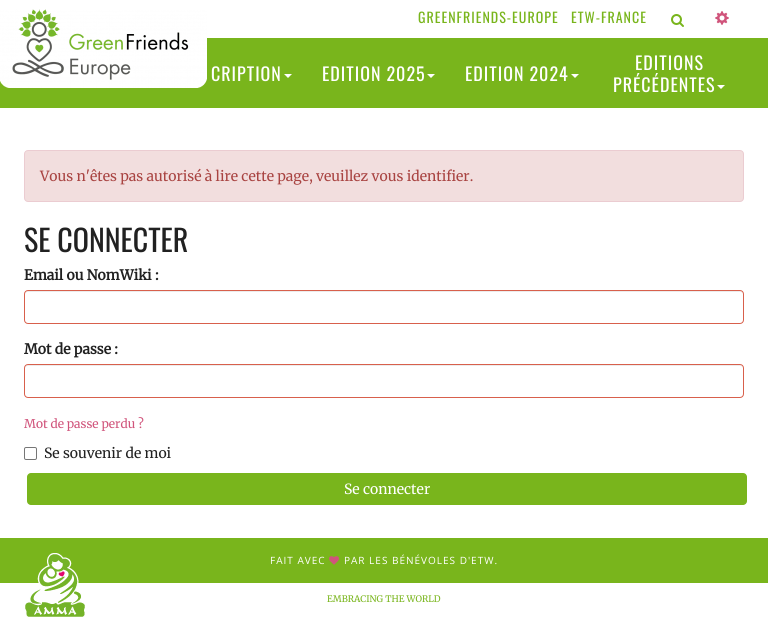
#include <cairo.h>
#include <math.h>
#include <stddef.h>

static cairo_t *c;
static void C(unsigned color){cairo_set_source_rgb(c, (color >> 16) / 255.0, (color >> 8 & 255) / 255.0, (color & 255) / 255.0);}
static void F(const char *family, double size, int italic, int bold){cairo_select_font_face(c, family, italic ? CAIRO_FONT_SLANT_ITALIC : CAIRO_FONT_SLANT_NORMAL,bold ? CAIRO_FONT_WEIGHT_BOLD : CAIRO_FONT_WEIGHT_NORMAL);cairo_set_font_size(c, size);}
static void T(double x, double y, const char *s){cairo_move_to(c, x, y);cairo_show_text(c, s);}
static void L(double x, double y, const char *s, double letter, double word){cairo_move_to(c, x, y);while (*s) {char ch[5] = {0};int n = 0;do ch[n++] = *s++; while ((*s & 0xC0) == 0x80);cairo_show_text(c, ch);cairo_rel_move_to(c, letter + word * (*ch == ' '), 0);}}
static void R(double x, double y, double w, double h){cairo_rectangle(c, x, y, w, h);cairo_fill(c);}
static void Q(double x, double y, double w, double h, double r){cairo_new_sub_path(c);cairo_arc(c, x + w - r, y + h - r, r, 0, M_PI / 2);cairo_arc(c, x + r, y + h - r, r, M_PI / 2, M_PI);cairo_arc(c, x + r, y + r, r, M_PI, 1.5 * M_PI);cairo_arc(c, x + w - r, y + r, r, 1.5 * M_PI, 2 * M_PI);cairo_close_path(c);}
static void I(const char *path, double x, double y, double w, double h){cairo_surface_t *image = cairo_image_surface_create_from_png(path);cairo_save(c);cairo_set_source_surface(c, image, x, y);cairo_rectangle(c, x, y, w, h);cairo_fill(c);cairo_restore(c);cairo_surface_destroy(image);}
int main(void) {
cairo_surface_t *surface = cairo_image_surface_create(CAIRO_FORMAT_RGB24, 768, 625);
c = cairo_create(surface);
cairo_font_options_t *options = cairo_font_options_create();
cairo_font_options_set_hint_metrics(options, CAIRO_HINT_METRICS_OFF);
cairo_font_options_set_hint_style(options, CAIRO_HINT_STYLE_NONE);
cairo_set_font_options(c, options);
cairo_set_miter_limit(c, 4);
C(0xffffff);
cairo_paint(c);
C(0x79b51c);
R(0,38,768,70);
I("1.png",0,9,207,79);
F("Oswald",14,0,0);
L(418,23,"GREENFRIENDS-EUROPE",1,0);
L(571,23,"ETW-FRANCE",1,0);
I("2.png",671,14,13,13);
I("3.png",715,11,14,14);
F("Oswald",18,0,0);
C(0xffffff);
L(211,81,"CRIPTION",1,0);
cairo_new_path(c);
cairo_move_to(c,284,74);
cairo_line_to(c,292,74);
cairo_line_to(c,288,78);
cairo_close_path(c);
cairo_fill(c);
L(322,81,"EDITION 2025",1,0);
cairo_new_path(c);
cairo_move_to(c,427,74);
cairo_line_to(c,435,74);
cairo_line_to(c,431,78);
cairo_close_path(c);
cairo_fill(c);
L(465,81,"EDITION 2024",1,0);
cairo_new_path(c);
cairo_move_to(c,571,74);
cairo_line_to(c,579,74);
cairo_line_to(c,575,78);
cairo_close_path(c);
cairo_fill(c);
L(635,70,"EDITIONS",1,0);
L(613,92,"PRÉCÉDENTES",1,0);
cairo_new_path(c);
cairo_move_to(c,717,85);
cairo_line_to(c,725,85);
cairo_line_to(c,721,89);
cairo_close_path(c);
cairo_fill(c);
C(0xf2dede);
Q(24.5,150.5,719,51,3.5);
cairo_fill_preserve(c);
C(0xebccd1);
cairo_set_line_width(c,1);
cairo_stroke(c);
F("Merriweather Light",14,0,0);
C(0xa94442);
T(40,181,"Vous n'êtes pas autorisé à lire cette page, veuillez vous identifier.");
F("Oswald",30,0,0);
C(0x212121);
T(24,252,"SE CONNECTER");
F("Merriweather",14,0,1);
T(24,280,"Email ou NomWiki :");
C(0xececec);
cairo_new_path(c);
cairo_move_to(c,28,292);
cairo_line_to(c,740,292);
cairo_curve_to(c,742,292,743,293,743,295);
cairo_curve_to(c,743,293,742,291,740,291);
cairo_line_to(c,28,291);
cairo_curve_to(c,26,291,25,293,25,295);
cairo_curve_to(c,25,293,26,292,28,292);
cairo_close_path(c);
cairo_fill(c);
Q(24.5,290.5,719,33,3.5);
C(0xd8604c);
cairo_stroke(c);
C(0x212121);
T(24,354,"Mot de passe :");
C(0xececec);
cairo_new_path(c);
cairo_move_to(c,28,366);
cairo_line_to(c,740,366);
cairo_curve_to(c,742,366,743,367,743,369);
cairo_curve_to(c,743,367,742,365,740,365);
cairo_line_to(c,28,365);
cairo_curve_to(c,26,365,25,367,25,369);
cairo_curve_to(c,25,367,26,366,28,366);
cairo_close_path(c);
cairo_fill(c);
Q(24.5,364.5,719,33,3.5);
C(0xd8604c);
cairo_stroke(c);
F("Merriweather Light",12,0,0);
C(0xd0547b);
T(24,428,"Mot de passe perdu ?");
Q(24.5,447.5,12,12,1.5);
C(0x767676);
cairo_stroke(c);
F("Merriweather Light",14,0,0);
C(0x212121);
T(44,458,"Se souvenir de moi");
C(0x79b51c);
Q(27,473,720,32,4);
cairo_fill(c);
C(0xffffff);
T(344,494,"Se connecter");
C(0x79b51c);
R(0,538,768,45);
I("4.png",25,553,60,64);
F("Open Sans",10,0,0);
C(0xffffff);
L(270,564,"FAIT AVEC",1,0);
I("5.png",329,556,10,9);
L(344,564,"PAR LES BÉNÉVOLES D'ETW.",1,0);
F("Merriweather Light",9,0,0);
C(0x79b51c);
T(327,602,"EMBRACING THE WORLD");
cairo_surface_write_to_png(surface, "o.png");
cairo_font_options_destroy(options);
cairo_destroy(c);
cairo_surface_destroy(surface);
return 0;
}
